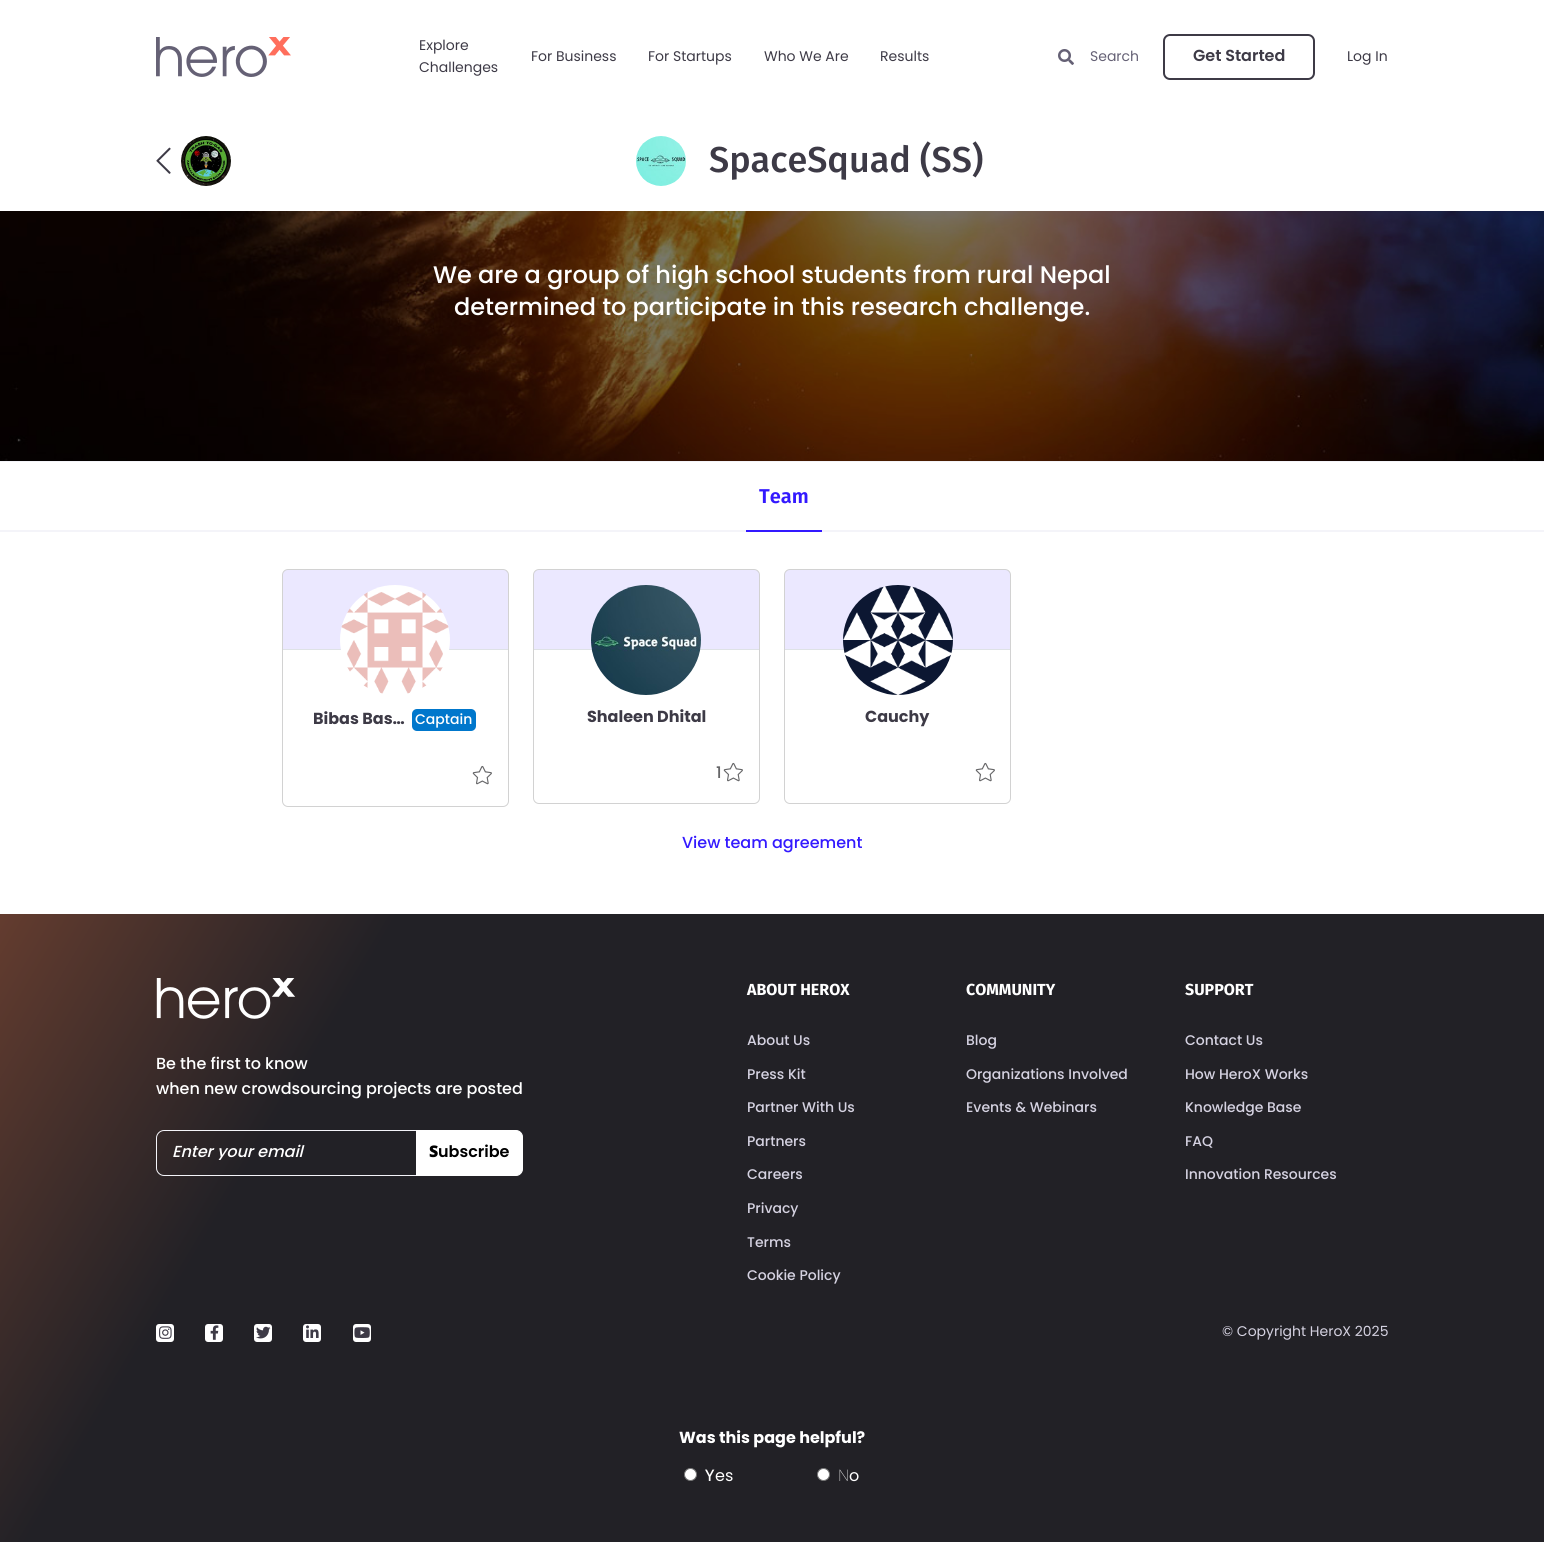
#include <cairo.h>
#include <math.h>
#include <stddef.h>

static cairo_t *c;
static void C(unsigned color){cairo_set_source_rgb(c, (color >> 16) / 255.0, (color >> 8 & 255) / 255.0, (color & 255) / 255.0);}
static void F(const char *family, double size, int italic, int bold){cairo_select_font_face(c, family, italic ? CAIRO_FONT_SLANT_ITALIC : CAIRO_FONT_SLANT_NORMAL,bold ? CAIRO_FONT_WEIGHT_BOLD : CAIRO_FONT_WEIGHT_NORMAL);cairo_set_font_size(c, size);}
static void T(double x, double y, const char *s){cairo_move_to(c, x, y);cairo_show_text(c, s);}
static void R(double x, double y, double w, double h){cairo_rectangle(c, x, y, w, h);cairo_fill(c);}
static void Q(double x, double y, double w, double h, double r){cairo_new_sub_path(c);cairo_arc(c, x + w - r, y + h - r, r, 0, M_PI / 2);cairo_arc(c, x + r, y + h - r, r, M_PI / 2, M_PI);cairo_arc(c, x + r, y + r, r, M_PI, 1.5 * M_PI);cairo_arc(c, x + w - r, y + r, r, 1.5 * M_PI, 2 * M_PI);cairo_close_path(c);}
static void I(const char *path, double x, double y, double w, double h){cairo_surface_t *image = cairo_image_surface_create_from_png(path);cairo_save(c);cairo_set_source_surface(c, image, x, y);cairo_rectangle(c, x, y, w, h);cairo_fill(c);cairo_restore(c);cairo_surface_destroy(image);}
int main(void) {
cairo_surface_t *surface = cairo_image_surface_create(CAIRO_FORMAT_RGB24, 1544, 1542);
c = cairo_create(surface);
cairo_font_options_t *options = cairo_font_options_create();
cairo_font_options_set_hint_metrics(options, CAIRO_HINT_METRICS_OFF);
cairo_font_options_set_hint_style(options, CAIRO_HINT_STYLE_NONE);
cairo_set_font_options(c, options);
cairo_set_miter_limit(c, 4);
cairo_pattern_t *gradient;
C(0xffffff);
cairo_paint(c);
I("1.png",156,37,135,40);
F("Poppins",14,0,0);
C(0x3d3a46);
T(419,50,"Explore");
T(419,72,"Challenges");
T(531,61,"For Business");
T(648,61,"For Startups");
T(764,61,"Who We Are");
T(880,61,"Results");
I("2.png",1058,49,16,16);
C(0x656175);
T(1090,61,"Search");
Q(1164,35,150,44,6);
C(0x3d3a46);
cairo_stroke(c);
F("Poppins SemiBold",16,0,0);
T(1193,61,"Get Started");
F("Poppins",14,0,0);
T(1347,61,"Log In");
I("3.png",156,147,15,27);
I("4.png",181,136,50,50);
I("5.png",636,136,50,50);
F("Fira Sans Medium",36,0,0);
T(709,172,"SpaceSquad (SS)");
I("6.png",0,211,1544,250);
F("Poppins Medium",24,0,0);
C(0xffffff);
T(433,283,"We are a group of high school students from rural Nepal");
T(454,315,"determined to participate in this research challenge.");
C(0xf4f4f9);
R(0,461,1544,1);
R(0,530,1544,2);
C(0x3319ff);
R(746,530,76,2);
F("Fira Sans SemiBold",20,0,0);
T(759,503,"Team");
Q(282.5,569.5,226,237,5.5);
C(0xd2d2d2);
cairo_set_line_width(c,1);
cairo_stroke(c);
cairo_set_source_rgba(c,0.2,0.098,1,0.1);
cairo_new_path(c);
cairo_move_to(c,288,570);
cairo_line_to(c,503,570);
cairo_curve_to(c,506,570,508,572,508,575);
cairo_line_to(c,508,650);
cairo_line_to(c,283,650);
cairo_line_to(c,283,575);
cairo_curve_to(c,283,572,285,570,288,570);
cairo_close_path(c);
cairo_fill(c);
C(0xdee2e6);
R(283,649,225,1);
I("7.png",340,585,110,109);
F("Poppins",16,0,1);
C(0x3d3a46);
T(313,724,"Bibas Bas…");
C(0x0077cc);
Q(412,709,64,22,5);
cairo_fill(c);
F("Poppins Medium",14,0,0);
C(0xffffff);
T(415,724,"Captain");
I("8.png",472,765,20,20);
Q(533.5,569.5,226,234,5.5);
C(0xd2d2d2);
cairo_stroke(c);
cairo_set_source_rgba(c,0.2,0.098,1,0.1);
cairo_new_path(c);
cairo_move_to(c,539,570);
cairo_line_to(c,754,570);
cairo_curve_to(c,757,570,759,572,759,575);
cairo_line_to(c,759,650);
cairo_line_to(c,534,650);
cairo_line_to(c,534,575);
cairo_curve_to(c,534,572,536,570,539,570);
cairo_close_path(c);
cairo_fill(c);
C(0xdee2e6);
R(534,649,225,1);
I("9.png",591,585,110,110);
F("Poppins",16,0,1);
C(0x3d3a46);
T(587,722,"Shaleen Dhital");
F("Poppins Medium",16,0,0);
C(0x666668);
T(716,778,"1");
I("8.png",723,762,20,20);
Q(784.5,569.5,226,234,5.5);
C(0xd2d2d2);
cairo_stroke(c);
cairo_set_source_rgba(c,0.2,0.098,1,0.1);
cairo_new_path(c);
cairo_move_to(c,790,570);
cairo_line_to(c,1005,570);
cairo_curve_to(c,1008,570,1010,572,1010,575);
cairo_line_to(c,1010,650);
cairo_line_to(c,785,650);
cairo_line_to(c,785,575);
cairo_curve_to(c,785,572,787,570,790,570);
cairo_close_path(c);
cairo_fill(c);
C(0xdee2e6);
R(785,649,225,1);
I("10.png",843,585,110,110);
F("Poppins",16,0,1);
C(0x3d3a46);
T(865,722,"Cauchy");
I("8.png",975,762,20,20);
F("Poppins Medium",16,0,0);
C(0x3319ff);
T(682,848,"View team agreement");
gradient = cairo_pattern_create_linear(1484,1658,-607,417);
cairo_pattern_add_color_stop_rgba(gradient,.12,0.133,0.129,0.149,1);
cairo_pattern_add_color_stop_rgba(gradient,.54,0.133,0.129,0.149,1);
cairo_pattern_add_color_stop_rgba(gradient,1,0.973,0.478,0.263,1);
cairo_set_source(c,gradient);
cairo_pattern_destroy(gradient);
R(0,914,1544,628);
I("11.png",156,978,140,41);
C(0xffffff);
T(156,1069,"Be the first to know");
T(156,1094,"when new crowdsourcing projects are posted");
cairo_new_path(c);
cairo_move_to(c,164,1130.5);
cairo_line_to(c,416.5,1130.5);
cairo_line_to(c,416.5,1175.5);
cairo_line_to(c,164,1175.5);
cairo_curve_to(c,160,1175.5,156.5,1172,156.5,1168);
cairo_line_to(c,156.5,1138);
cairo_curve_to(c,156.5,1134,160,1130.5,164,1130.5);
cairo_close_path(c);
C(0xf4f4f9);
cairo_stroke(c);
cairo_save(c);
cairo_rectangle(c,172,1144,229,16);
cairo_clip(c);
F("Poppins Medium",16,1,0);
C(0xffffff);
T(172,1157,"Enter your email");
cairo_restore(c);
C(0xffffff);
cairo_new_path(c);
cairo_move_to(c,416.5,1130.5);
cairo_line_to(c,516,1130.5);
cairo_curve_to(c,519.5,1130.5,522.5,1133.5,522.5,1137);
cairo_line_to(c,522.5,1169);
cairo_curve_to(c,522.5,1172.5,519.5,1175.5,516,1175.5);
cairo_line_to(c,416.5,1175.5);
cairo_close_path(c);
cairo_fill_preserve(c);
cairo_stroke(c);
F("Noto Sans Black",16,0,0);
C(0x000000);
T(429,1157,"S");
F("Poppins SemiBold",16,0,0);
T(438,1157,"ubscribe");
F("Fira Sans",16,0,1);
C(0xffffff);
T(747,995,"ABOUT HEROX");
F("Poppins Medium",14,0,0);
C(0xd5d2e1);
T(747,1045,"About Us");
T(747,1079,"Press Kit");
T(747,1112,"Partner With Us");
T(747,1146,"Partners");
T(747,1179,"Careers");
T(747,1213,"Privacy");
T(747,1247,"Terms");
T(747,1280,"Cookie Policy");
F("Fira Sans",16,0,1);
C(0xffffff);
T(966,995,"COMMUNITY");
F("Poppins Medium",14,0,0);
C(0xd5d2e1);
T(966,1045,"Blog");
T(966,1079,"Organizations Involved");
T(966,1112,"Events & Webinars");
F("Fira Sans",16,0,1);
C(0xffffff);
T(1185,995,"SUPPORT");
F("Poppins Medium",14,0,0);
C(0xd5d2e1);
T(1185,1045,"Contact Us");
T(1185,1079,"How HeroX Works");
T(1185,1112,"Knowledge Base");
T(1185,1146,"FAQ");
T(1185,1179,"Innovation Resources");
C(0xffffff);
Q(156,1324,18,18,3);
cairo_fill(c);
I("12.png",159,1326,13,13);
Q(205,1324,18,18,3);
cairo_fill(c);
I("13.png",210,1325,9,15);
Q(254,1324,18,18,3);
cairo_fill(c);
I("14.png",256,1326,15,13);
Q(303,1324,18,18,3);
cairo_fill(c);
I("15.png",306,1325,13,13);
Q(353,1324,18,18,3);
cairo_fill(c);
I("16.png",354,1327,16,11);
F("Poppins",14,0,0);
C(0xd5d2e1);
T(1222,1336,"© Copyright HeroX 2025");
F("Poppins",16,0,1);
C(0xffffff);
T(679,1443,"Was this page helpful?");
cairo_new_path(c);
cairo_arc(c,690.5,1474.5,6,0,2 * M_PI);
cairo_fill_preserve(c);
C(0x767676);
cairo_stroke(c);
F("Noto Sans Medium",16,0,0);
C(0xffffff);
T(705,1481,"Y");
F("Poppins",16,0,0);
T(715,1481,"es");
cairo_new_path(c);
cairo_arc(c,823.5,1474.5,6,0,2 * M_PI);
cairo_fill_preserve(c);
C(0x767676);
cairo_stroke(c);
F("Noto Sans Thin",16,0,0);
C(0xffffff);
T(838,1481,"N");
F("Poppins",16,0,0);
T(849,1481,"o");
cairo_surface_write_to_png(surface, "o.png");
cairo_font_options_destroy(options);
cairo_destroy(c);
cairo_surface_destroy(surface);
return 0;
}
